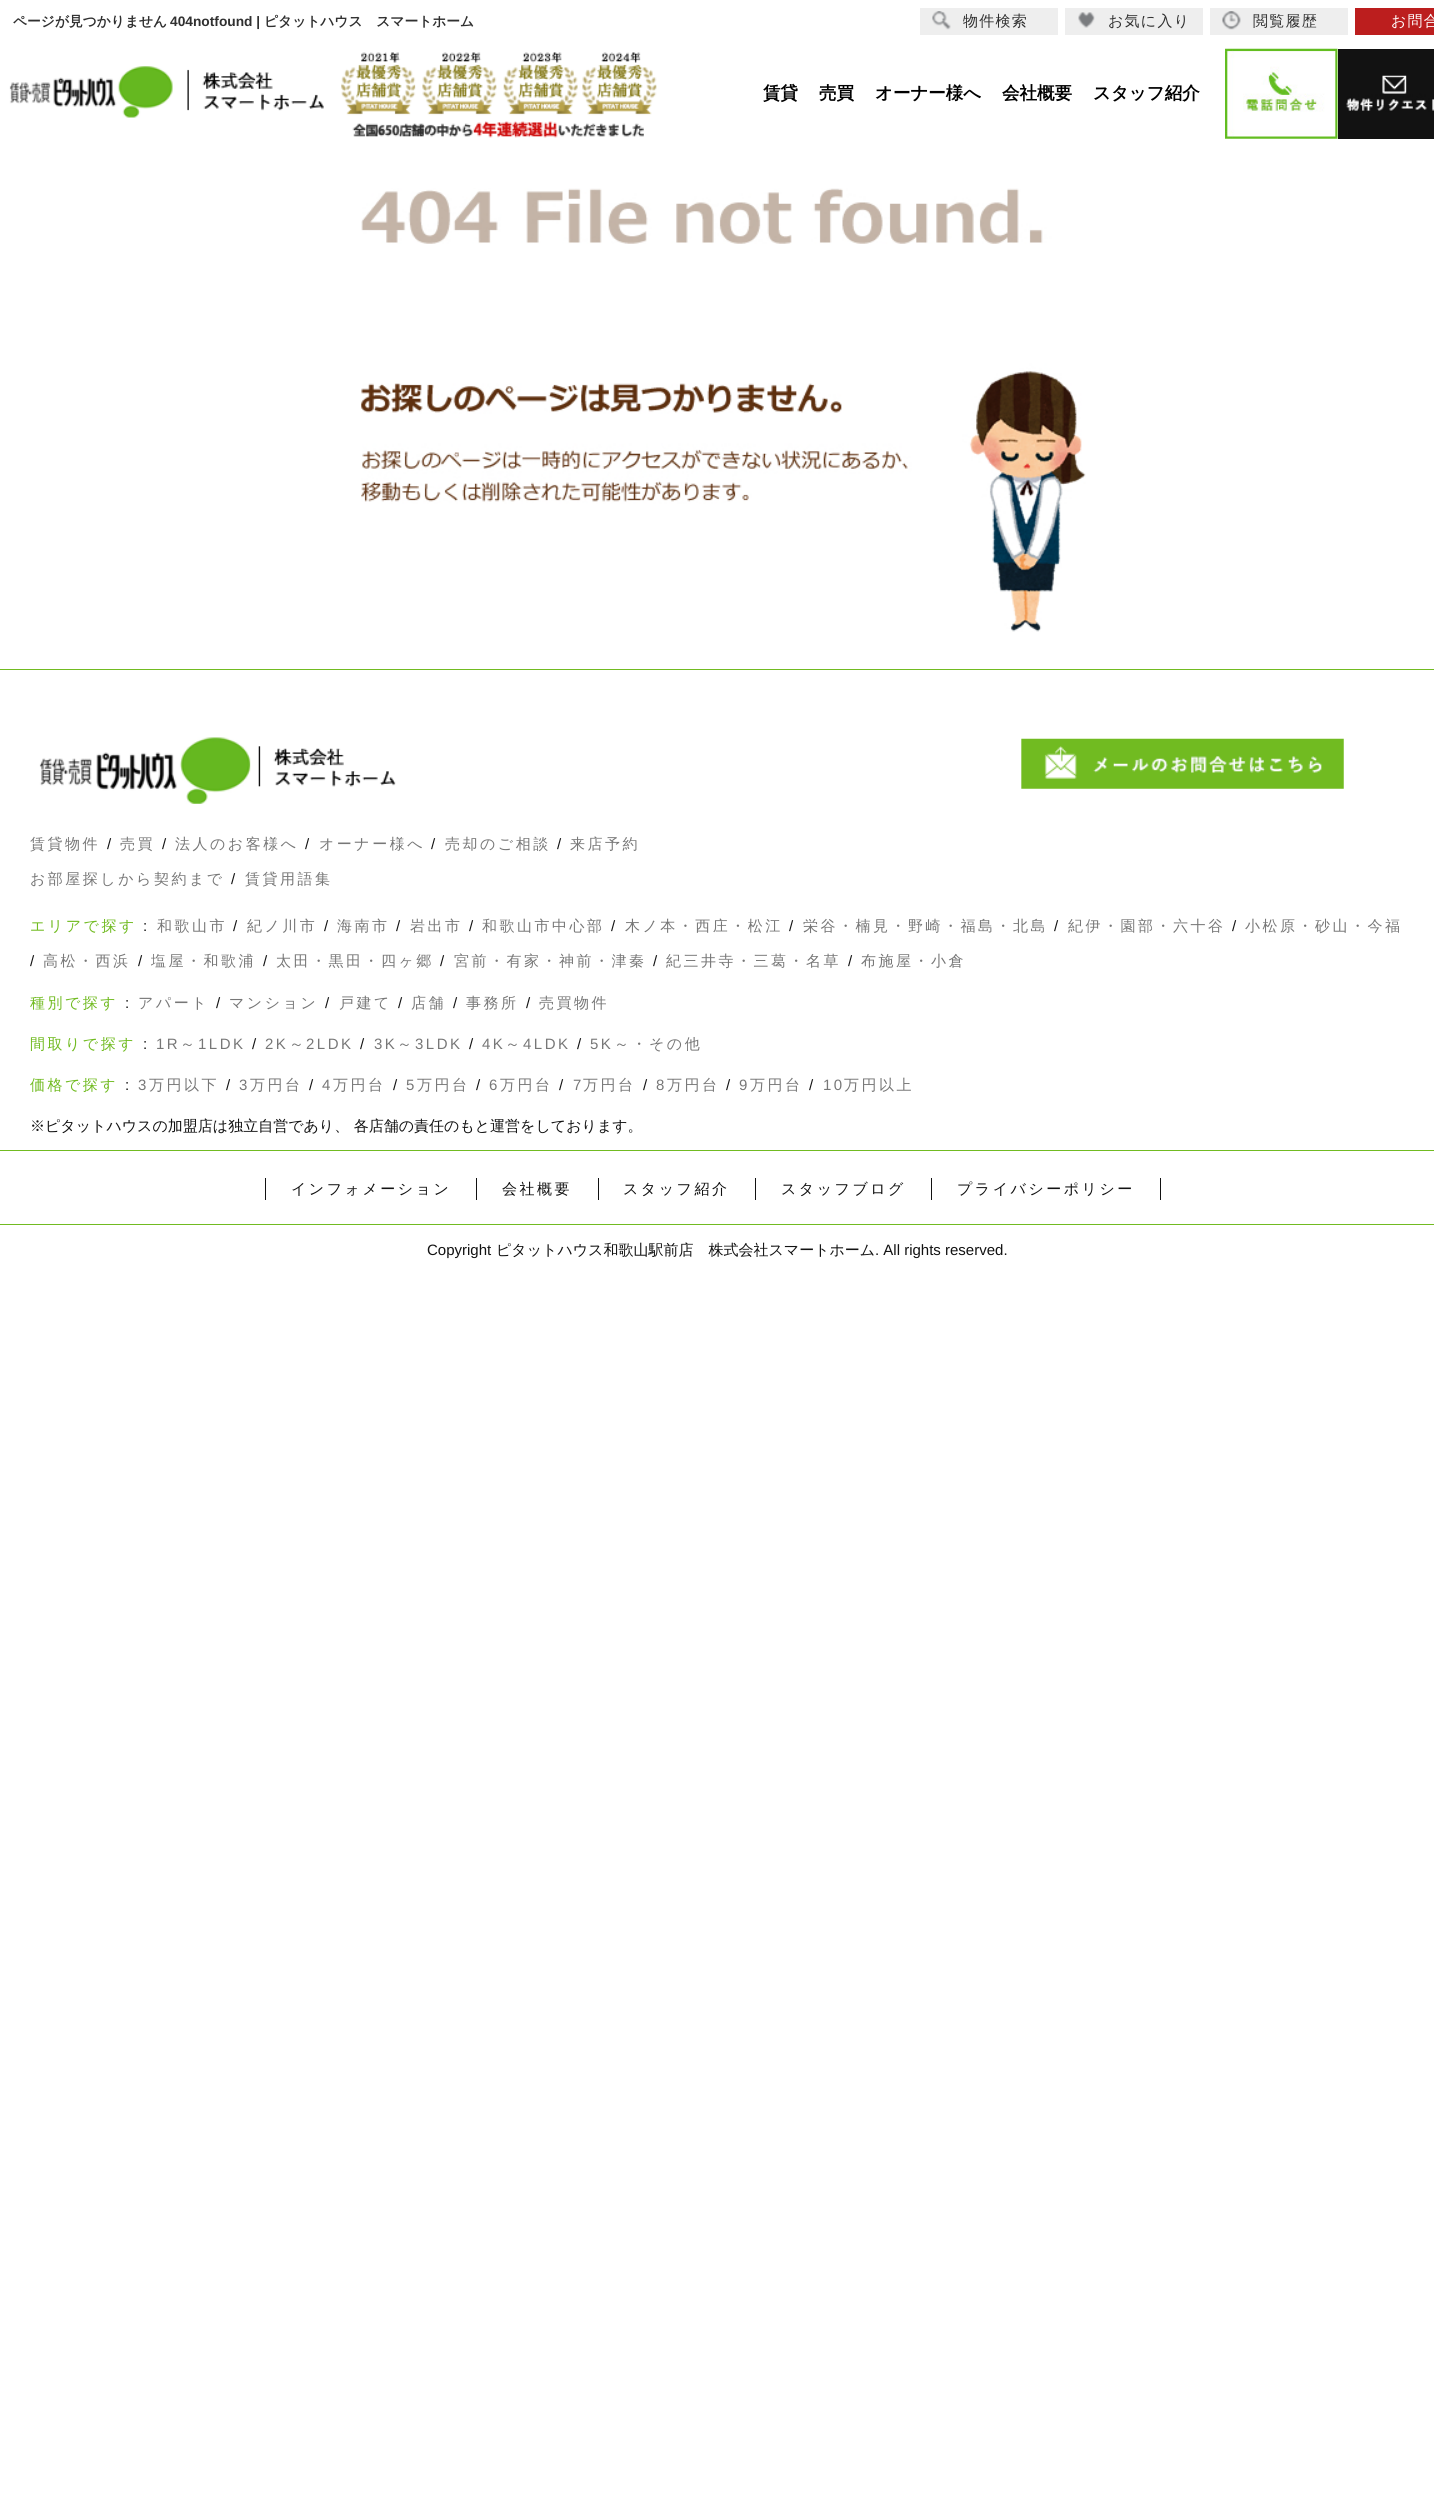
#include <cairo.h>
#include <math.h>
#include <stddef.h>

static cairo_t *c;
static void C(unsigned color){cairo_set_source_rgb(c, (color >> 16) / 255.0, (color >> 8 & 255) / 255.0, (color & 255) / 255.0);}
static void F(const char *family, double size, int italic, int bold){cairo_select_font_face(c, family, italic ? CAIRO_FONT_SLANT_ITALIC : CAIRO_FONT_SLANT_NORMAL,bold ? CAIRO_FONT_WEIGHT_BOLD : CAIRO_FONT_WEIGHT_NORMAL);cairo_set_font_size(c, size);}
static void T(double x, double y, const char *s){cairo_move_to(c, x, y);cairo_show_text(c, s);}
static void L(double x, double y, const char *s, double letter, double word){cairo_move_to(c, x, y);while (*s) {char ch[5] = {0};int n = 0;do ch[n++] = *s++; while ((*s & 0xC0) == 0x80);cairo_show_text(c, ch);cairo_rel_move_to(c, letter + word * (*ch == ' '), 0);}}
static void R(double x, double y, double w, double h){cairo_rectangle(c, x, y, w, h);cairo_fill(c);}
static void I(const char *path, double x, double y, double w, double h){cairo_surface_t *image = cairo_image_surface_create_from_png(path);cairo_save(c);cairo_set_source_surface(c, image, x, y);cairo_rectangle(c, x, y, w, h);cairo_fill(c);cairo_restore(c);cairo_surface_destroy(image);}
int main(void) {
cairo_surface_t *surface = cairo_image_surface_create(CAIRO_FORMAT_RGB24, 1434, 2503);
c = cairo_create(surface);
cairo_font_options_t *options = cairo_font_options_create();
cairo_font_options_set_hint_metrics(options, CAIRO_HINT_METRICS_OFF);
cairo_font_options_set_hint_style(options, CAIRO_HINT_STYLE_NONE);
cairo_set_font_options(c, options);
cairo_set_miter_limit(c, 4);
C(0xffffff);
cairo_paint(c);
C(0xeeeeee);
R(920,8,138,27);
I("1.png",932,11,19,19);
F("WenQuanYi Zen Hei Medium",15,0,0);
C(0x303030);
L(963,26,"物件検索",1.25,0);
C(0xeeeeee);
R(1065,8,138,27);
I("2.png",1078,12,17,16);
C(0x303030);
L(1108,26,"お気に入り",1.25,0);
C(0xeeeeee);
R(1210,8,138,27);
I("3.png",1222,11,19,19);
C(0x303030);
L(1253,26,"閲覧履歴",1.25,0);
C(0xbc1e1e);
R(1355,8,79,27);
C(0xffffff);
L(1391,26,"お問合",1.25,0);
C(0x71bb21);
R(0,669,1434,1);
I("4.png",1021,738,323,51);
I("5.png",39,737,357,67);
C(0x777777);
L(30,849,"賃貸物件",2.5,0);
F("Liberation Sans",15,0,0);
C(0x121212);
L(107,849,"/",2.5,0);
F("WenQuanYi Zen Hei Medium",15,0,0);
C(0x777777);
L(120,849,"売買",2.5,0);
F("Liberation Sans",15,0,0);
C(0x121212);
L(162,849,"/",2.5,0);
F("WenQuanYi Zen Hei Medium",15,0,0);
C(0x777777);
L(175,849,"法人のお客様へ",2.5,0);
F("Liberation Sans",15,0,0);
C(0x121212);
L(305,849,"/",2.5,0);
F("WenQuanYi Zen Hei Medium",15,0,0);
C(0x777777);
L(319,849,"オーナー様へ",2.5,0);
F("Liberation Sans",15,0,0);
C(0x121212);
L(431,849,"/",2.5,0);
F("WenQuanYi Zen Hei Medium",15,0,0);
C(0x777777);
L(445,849,"売却のご相談",2.5,0);
F("Liberation Sans",15,0,0);
C(0x121212);
L(557,849,"/",2.5,0);
F("WenQuanYi Zen Hei Medium",15,0,0);
C(0x777777);
L(570,849,"来店予約",2.5,0);
L(30,884,"お部屋探しから契約まで",2.5,0);
F("Liberation Sans",15,0,0);
C(0x121212);
L(231,884,"/",2.5,0);
F("WenQuanYi Zen Hei Medium",15,0,0);
C(0x777777);
L(245,884,"賃貸用語集",2.5,0);
C(0x71bb21);
L(30,931,"エリアで探す",2.5,0);
F("Liberation Sans",15,0,0);
C(0x121212);
L(143,931,":",2.5,0);
F("WenQuanYi Zen Hei Medium",15,0,0);
C(0x777777);
L(157,931,"和歌山市",2.5,0);
F("Liberation Sans",15,0,0);
C(0x121212);
L(233,931,"/",2.5,0);
F("WenQuanYi Zen Hei Medium",15,0,0);
C(0x777777);
L(247,931,"紀ノ川市",2.5,0);
F("Liberation Sans",15,0,0);
C(0x121212);
L(324,931,"/",2.5,0);
F("WenQuanYi Zen Hei Medium",15,0,0);
C(0x777777);
L(337,931,"海南市",2.5,0);
F("Liberation Sans",15,0,0);
C(0x121212);
L(396,931,"/",2.5,0);
F("WenQuanYi Zen Hei Medium",15,0,0);
C(0x777777);
L(410,931,"岩出市",2.5,0);
F("Liberation Sans",15,0,0);
C(0x121212);
L(469,931,"/",2.5,0);
F("WenQuanYi Zen Hei Medium",15,0,0);
C(0x777777);
L(482,931,"和歌山市中心部",2.5,0);
F("Liberation Sans",15,0,0);
C(0x121212);
L(611,931,"/",2.5,0);
F("WenQuanYi Zen Hei Medium",15,0,0);
C(0x777777);
L(625,931,"木ノ本・西庄・松江",2.5,0);
F("Liberation Sans",15,0,0);
C(0x121212);
L(789,931,"/",2.5,0);
F("WenQuanYi Zen Hei Medium",15,0,0);
C(0x777777);
L(803,931,"栄谷・楠見・野崎・福島・北島",2.5,0);
F("Liberation Sans",15,0,0);
C(0x121212);
L(1054,931,"/",2.5,0);
F("WenQuanYi Zen Hei Medium",15,0,0);
C(0x777777);
L(1068,931,"紀伊・園部・六十谷",2.5,0);
F("Liberation Sans",15,0,0);
C(0x121212);
L(1232,931,"/",2.5,0);
F("WenQuanYi Zen Hei Medium",15,0,0);
C(0x777777);
L(1245,931,"小松原・砂山・今福",2.5,0);
F("Liberation Sans",15,0,0);
C(0x121212);
L(30,966,"/",2.5,0);
F("WenQuanYi Zen Hei Medium",15,0,0);
C(0x777777);
L(43,966,"高松・西浜",2.5,0);
F("Liberation Sans",15,0,0);
C(0x121212);
L(138,966,"/",2.5,0);
F("WenQuanYi Zen Hei Medium",15,0,0);
C(0x777777);
L(151,966,"塩屋・和歌浦",2.5,0);
F("Liberation Sans",15,0,0);
C(0x121212);
L(263,966,"/",2.5,0);
F("WenQuanYi Zen Hei Medium",15,0,0);
C(0x777777);
L(276,966,"太田・黒田・四ヶ郷",2.5,0);
F("Liberation Sans",15,0,0);
C(0x121212);
L(440,966,"/",2.5,0);
F("WenQuanYi Zen Hei Medium",15,0,0);
C(0x777777);
L(454,966,"宮前・有家・神前・津秦",2.5,0);
F("Liberation Sans",15,0,0);
C(0x121212);
L(653,966,"/",2.5,0);
F("WenQuanYi Zen Hei Medium",15,0,0);
C(0x777777);
L(666,966,"紀三井寺・三葛・名草",2.5,0);
F("Liberation Sans",15,0,0);
C(0x121212);
L(848,966,"/",2.5,0);
F("WenQuanYi Zen Hei Medium",15,0,0);
C(0x777777);
L(861,966,"布施屋・小倉",2.5,0);
C(0x71bb21);
L(30,1008,"種別で探す",2.5,0);
F("Liberation Sans",15,0,0);
C(0x121212);
L(125,1008,":",2.5,0);
F("WenQuanYi Zen Hei Medium",15,0,0);
C(0x777777);
L(138,1008,"アパート",2.5,0);
F("Liberation Sans",15,0,0);
C(0x121212);
L(216,1008,"/",2.5,0);
F("WenQuanYi Zen Hei Medium",15,0,0);
C(0x777777);
L(229,1008,"マンション",2.5,0);
F("Liberation Sans",15,0,0);
C(0x121212);
L(325,1008,"/",2.5,0);
F("WenQuanYi Zen Hei Medium",15,0,0);
C(0x777777);
L(339,1008,"戸建て",2.5,0);
F("Liberation Sans",15,0,0);
C(0x121212);
L(398,1008,"/",2.5,0);
F("WenQuanYi Zen Hei Medium",15,0,0);
C(0x777777);
L(411,1008,"店舗",2.5,0);
F("Liberation Sans",15,0,0);
C(0x121212);
L(453,1008,"/",2.5,0);
F("WenQuanYi Zen Hei Medium",15,0,0);
C(0x777777);
L(466,1008,"事務所",2.5,0);
F("Liberation Sans",15,0,0);
C(0x121212);
L(526,1008,"/",2.5,0);
F("WenQuanYi Zen Hei Medium",15,0,0);
C(0x777777);
L(539,1008,"売買物件",2.5,0);
C(0x71bb21);
L(30,1049,"間取りで探す",2.5,0);
F("Liberation Sans",15,0,0);
C(0x121212);
L(143,1049,":",2.5,0);
C(0x777777);
L(156,1049,"1R",2.5,0);
F("WenQuanYi Zen Hei Medium",15,0,0);
L(180,1049,"～",2.5,0);
F("Liberation Sans",15,0,0);
L(198,1049,"1LDK",2.5,0);
C(0x121212);
L(252,1049,"/",2.5,0);
C(0x777777);
L(265,1049,"2K",2.5,0);
F("WenQuanYi Zen Hei Medium",15,0,0);
L(289,1049,"～",2.5,0);
F("Liberation Sans",15,0,0);
L(306,1049,"2LDK",2.5,0);
C(0x121212);
L(360,1049,"/",2.5,0);
C(0x777777);
L(374,1049,"3K",2.5,0);
F("WenQuanYi Zen Hei Medium",15,0,0);
L(397,1049,"～",2.5,0);
F("Liberation Sans",15,0,0);
L(415,1049,"3LDK",2.5,0);
C(0x121212);
L(469,1049,"/",2.5,0);
C(0x777777);
L(482,1049,"4K",2.5,0);
F("WenQuanYi Zen Hei Medium",15,0,0);
L(505,1049,"～",2.5,0);
F("Liberation Sans",15,0,0);
L(523,1049,"4LDK",2.5,0);
C(0x121212);
L(577,1049,"/",2.5,0);
C(0x777777);
L(590,1049,"5K",2.5,0);
F("WenQuanYi Zen Hei Medium",15,0,0);
L(614,1049,"～・その他",2.5,0);
C(0x71bb21);
L(30,1090,"価格で探す",2.5,0);
F("Liberation Sans",15,0,0);
C(0x121212);
L(125,1090,":",2.5,0);
C(0x777777);
L(138,1090,"3",2.5,0);
F("WenQuanYi Zen Hei Medium",15,0,0);
L(149,1090,"万円以下",2.5,0);
F("Liberation Sans",15,0,0);
C(0x121212);
L(226,1090,"/",2.5,0);
C(0x777777);
L(239,1090,"3",2.5,0);
F("WenQuanYi Zen Hei Medium",15,0,0);
L(250,1090,"万円台",2.5,0);
F("Liberation Sans",15,0,0);
C(0x121212);
L(309,1090,"/",2.5,0);
C(0x777777);
L(322,1090,"4",2.5,0);
F("WenQuanYi Zen Hei Medium",15,0,0);
L(333,1090,"万円台",2.5,0);
F("Liberation Sans",15,0,0);
C(0x121212);
L(393,1090,"/",2.5,0);
C(0x777777);
L(406,1090,"5",2.5,0);
F("WenQuanYi Zen Hei Medium",15,0,0);
L(417,1090,"万円台",2.5,0);
F("Liberation Sans",15,0,0);
C(0x121212);
L(476,1090,"/",2.5,0);
C(0x777777);
L(489,1090,"6",2.5,0);
F("WenQuanYi Zen Hei Medium",15,0,0);
L(500,1090,"万円台",2.5,0);
F("Liberation Sans",15,0,0);
C(0x121212);
L(559,1090,"/",2.5,0);
C(0x777777);
L(573,1090,"7",2.5,0);
F("WenQuanYi Zen Hei Medium",15,0,0);
L(583,1090,"万円台",2.5,0);
F("Liberation Sans",15,0,0);
C(0x121212);
L(643,1090,"/",2.5,0);
C(0x777777);
L(656,1090,"8",2.5,0);
F("WenQuanYi Zen Hei Medium",15,0,0);
L(667,1090,"万円台",2.5,0);
F("Liberation Sans",15,0,0);
C(0x121212);
L(726,1090,"/",2.5,0);
C(0x777777);
L(739,1090,"9",2.5,0);
F("WenQuanYi Zen Hei Medium",15,0,0);
L(750,1090,"万円台",2.5,0);
F("Liberation Sans",15,0,0);
C(0x121212);
L(809,1090,"/",2.5,0);
C(0x777777);
L(823,1090,"10",2.5,0);
F("WenQuanYi Zen Hei Medium",15,0,0);
L(844,1090,"万円以上",2.5,0);
C(0x121212);
T(30,1131,"※ピタットハウスの加盟店は独立自営であり、 各店舗の責任のもと運営をしております。");
C(0x71bb21);
R(0,1150,1434,1);
R(0,1224,1434,1);
C(0x121212);
R(265,1178,1,22);
L(291,1194,"インフォメーション",2.5,0);
R(476,1178,1,22);
L(502,1194,"会社概要",2.5,0);
R(598,1178,1,22);
L(623,1194,"スタッフ紹介",2.5,0);
R(755,1178,1,22);
L(781,1194,"スタッフブログ",2.5,0);
R(1160,1178,1,22);
R(931,1178,1,22);
L(957,1194,"プライバシーポリシー",2.5,0);
F("Liberation Sans",15,0,0);
T(427,1255,"Copyright");
F("WenQuanYi Zen Hei Medium",15,0,0);
T(496,1255,"ピタットハウス和歌山駅前店　株式会社スマートホーム");
F("Liberation Sans",15,0,0);
T(875,1255,". All rights reserved.");
I("6.png",361,188,725,444);
F("WenQuanYi Zen Hei",13.75,0,1);
C(0x303030);
T(13,26,"ページが見つかりません");
F("Liberation Sans",13.75,0,1);
T(170,26,"404notfound |");
F("WenQuanYi Zen Hei",13.75,0,1);
T(264,26,"ピタットハウス　スマートホーム");
I("7.png",9,52,648,86);
F("WenQuanYi Zen Hei",17.5,0,1);
C(0x000000);
T(763,99,"賃貸");
T(819,99,"売買");
T(875,99,"オーナー様へ");
T(1002,99,"会社概要");
T(1093,99,"スタッフ紹介");
I("8.png",1225,48,113,91);
I("9.png",1338,49,96,90);
cairo_surface_write_to_png(surface, "o.png");
cairo_font_options_destroy(options);
cairo_destroy(c);
cairo_surface_destroy(surface);
return 0;
}
